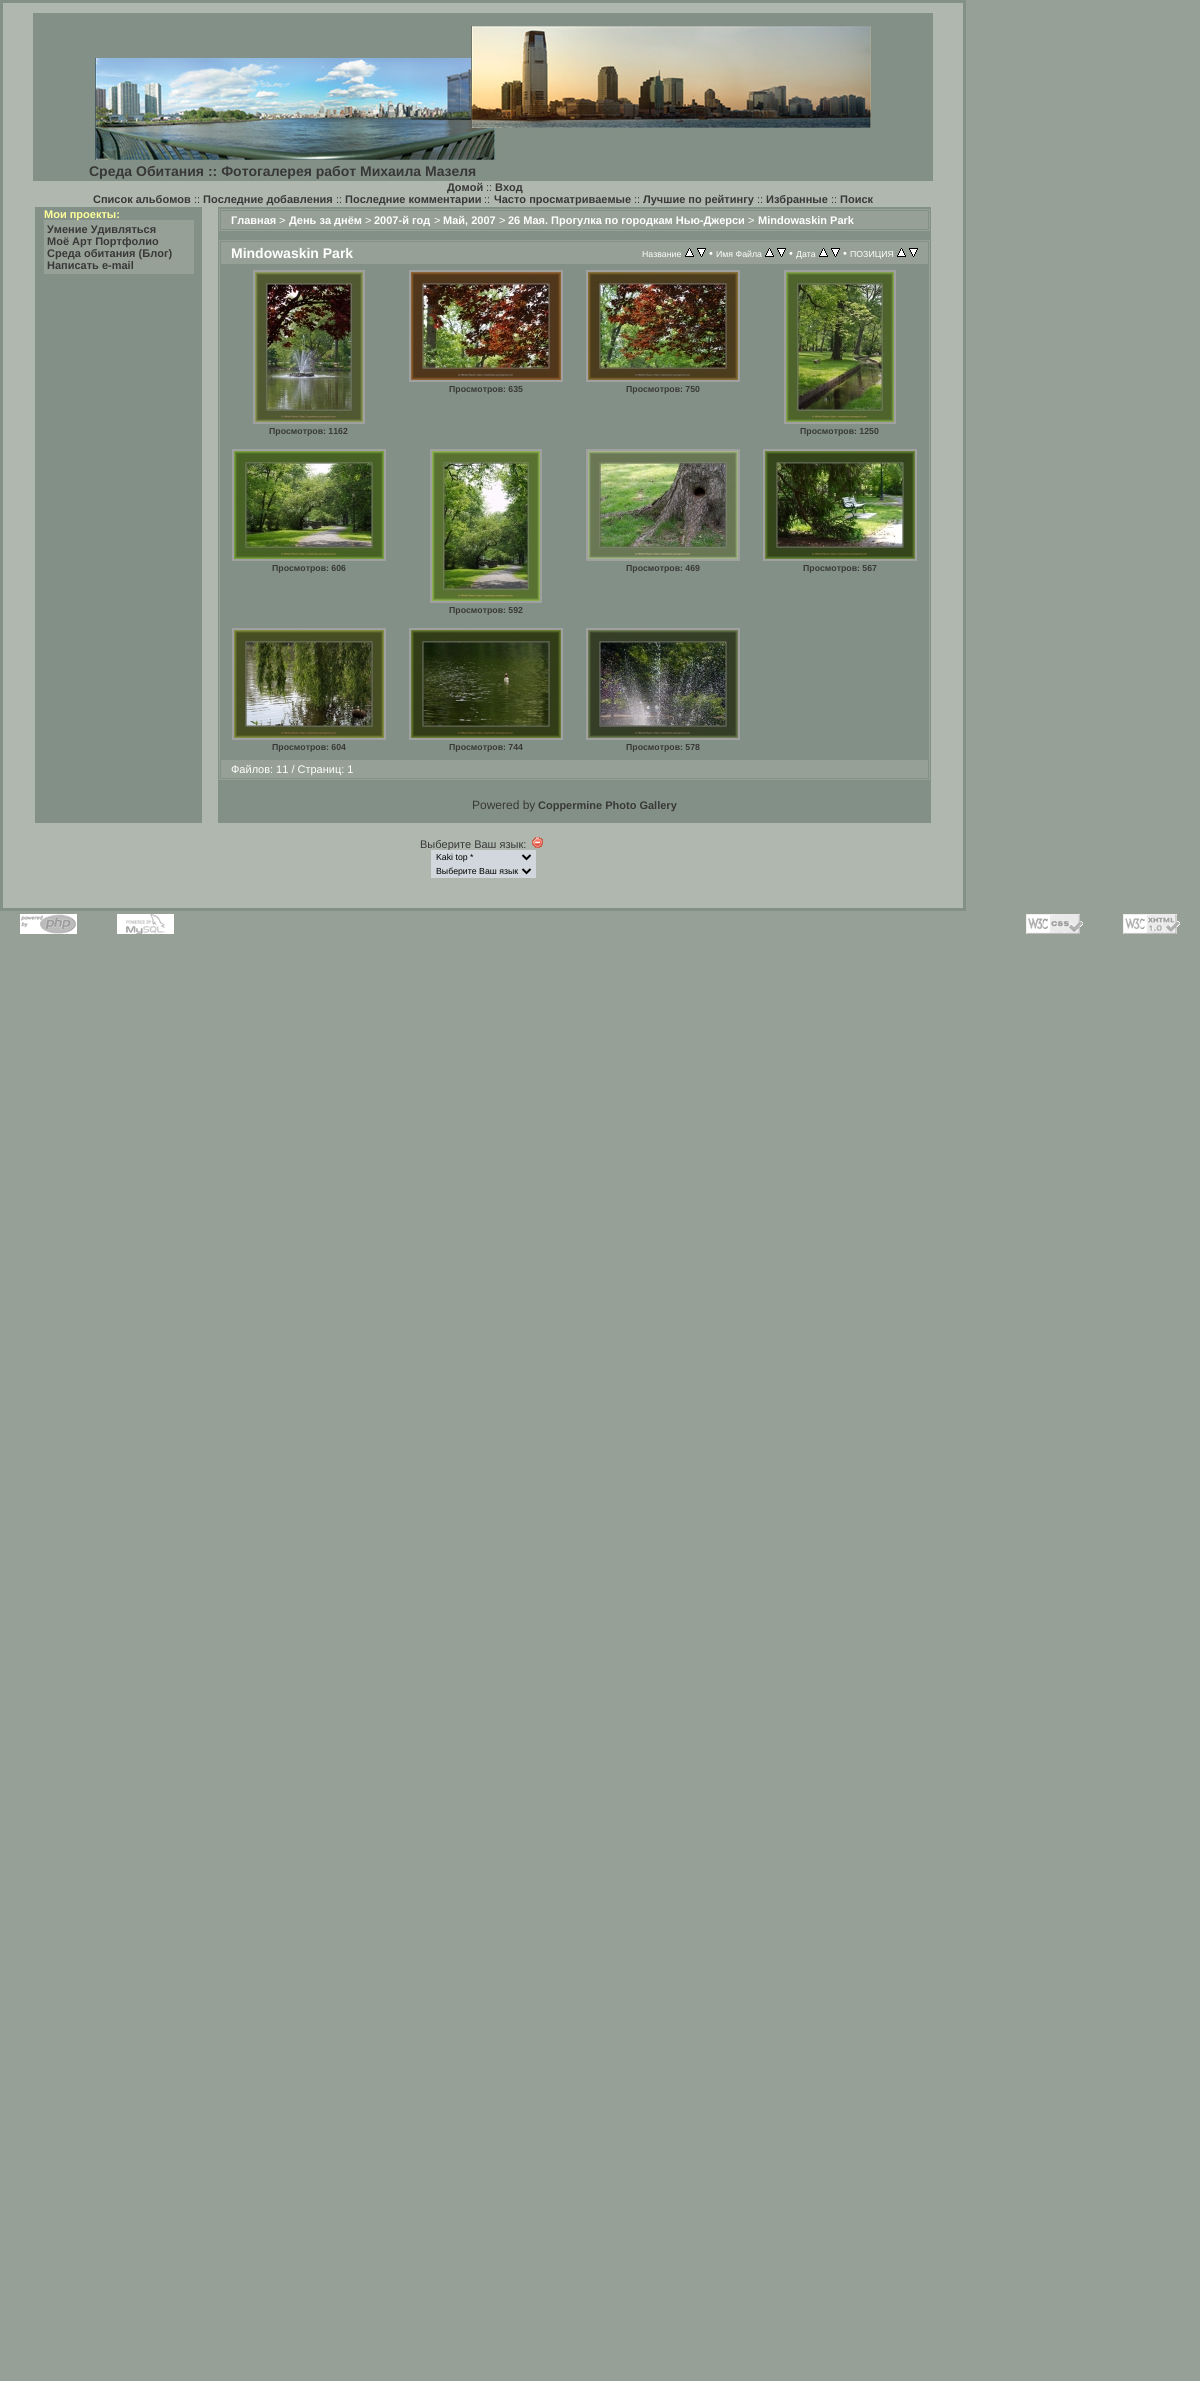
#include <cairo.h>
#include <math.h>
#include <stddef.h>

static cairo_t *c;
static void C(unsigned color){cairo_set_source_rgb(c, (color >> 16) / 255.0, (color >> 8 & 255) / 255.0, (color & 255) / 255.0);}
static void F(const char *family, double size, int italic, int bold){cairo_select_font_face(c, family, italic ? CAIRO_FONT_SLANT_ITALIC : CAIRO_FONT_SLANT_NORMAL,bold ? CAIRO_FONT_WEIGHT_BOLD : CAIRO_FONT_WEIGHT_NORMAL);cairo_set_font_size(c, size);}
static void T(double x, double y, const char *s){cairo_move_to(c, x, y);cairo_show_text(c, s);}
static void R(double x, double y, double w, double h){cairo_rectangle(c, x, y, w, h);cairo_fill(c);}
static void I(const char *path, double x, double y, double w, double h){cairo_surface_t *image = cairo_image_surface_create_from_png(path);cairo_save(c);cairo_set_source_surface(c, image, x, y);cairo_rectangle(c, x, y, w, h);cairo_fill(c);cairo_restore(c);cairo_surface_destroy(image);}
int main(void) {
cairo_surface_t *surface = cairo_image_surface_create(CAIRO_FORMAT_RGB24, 1200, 2381);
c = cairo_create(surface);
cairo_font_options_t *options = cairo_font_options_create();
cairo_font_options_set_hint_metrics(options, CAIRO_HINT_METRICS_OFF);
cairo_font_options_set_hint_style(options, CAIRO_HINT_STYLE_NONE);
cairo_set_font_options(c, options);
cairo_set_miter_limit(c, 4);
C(0x96a096);
cairo_paint(c);
C(0x839087);
R(0,0,966,911);
C(0xafb7af);
R(3,3,960,905);
C(0x839087);
R(33,13,900,168);
I("1.png",94,25,777,136);
F("Liberation Sans",14,0,1);
C(0x383838);
T(89,176,"Среда Обитания :: Фотогалерея работ Михаила Мазеля");
F("Liberation Sans",11,0,1);
T(447,191,"Домой");
F("Liberation Sans",11,0,0);
T(486,191,"::");
F("Liberation Sans",11,0,1);
T(495,191,"Вход");
T(93,203,"Список альбомов");
F("Liberation Sans",11,0,0);
T(194,203,"::");
F("Liberation Sans",11,0,1);
T(203,203,"Последние добавления");
F("Liberation Sans",11,0,0);
T(336,203,"::");
F("Liberation Sans",11,0,1);
T(345,203,"Последние комментарии");
F("Liberation Sans",11,0,0);
T(484,203,"::");
F("Liberation Sans",11,0,1);
T(494,203,"Часто просматриваемые");
F("Liberation Sans",11,0,0);
T(634,203,"::");
F("Liberation Sans",11,0,1);
T(643,203,"Лучшие по рейтингу");
F("Liberation Sans",11,0,0);
T(757,203,"::");
F("Liberation Sans",11,0,1);
T(766,203,"Избранные");
F("Liberation Sans",11,0,0);
T(831,203,"::");
F("Liberation Sans",11,0,1);
T(840,203,"Поиск");
C(0x839087);
R(35,207,167,616);
C(0x96a096);
R(44,220,150,54);
C(0xffff99);
T(44,218,"Мои проекты:");
C(0x383838);
T(47,233,"Умение Удивляться");
T(47,245,"Моё Арт Портфолио");
T(47,257,"Среда обитания (Блог)");
T(47,269,"Написать e-mail");
C(0x839087);
R(218,207,713,616);
cairo_rectangle(c,219.5,209.5,710,21);
C(0x96a096);
cairo_set_line_width(c,1);
cairo_stroke(c);
R(221,211,707,18);
C(0xffffff);
T(231,224,"Главная");
F("Liberation Sans",11,0,0);
T(279,224,">");
F("Liberation Sans",11,0,1);
T(289,224,"День за днём");
F("Liberation Sans",11,0,0);
T(365,224,">");
F("Liberation Sans",11,0,1);
T(374,224,"2007-й год");
F("Liberation Sans",11,0,0);
T(434,224,">");
F("Liberation Sans",11,0,1);
T(443,224,"Май, 2007");
F("Liberation Sans",11,0,0);
T(499,224,">");
F("Liberation Sans",11,0,1);
T(508,224,"26 Мая. Прогулка по городкам Нью-Джерси");
F("Liberation Sans",11,0,0);
T(748,224,">");
F("Liberation Sans",11,0,1);
T(758,224,"Mindowaskin Park");
cairo_rectangle(c,219.5,240.5,710,539);
C(0x96a096);
cairo_stroke(c);
R(221,242,707,22);
F("Liberation Sans",14,0,1);
C(0xffffff);
T(231,258,"Mindowaskin Park");
F("Liberation Sans",8.75,0,0);
T(642,257,"Название");
I("2.png",685,248,9,9);
I("3.png",697,248,9,9);
F("Liberation Sans",11,0,0);
T(709,257,"•");
F("Liberation Sans",8.75,0,0);
T(716,257,"Имя Файла");
I("2.png",765,248,9,9);
I("3.png",777,248,9,9);
F("Liberation Sans",11,0,0);
T(789,257,"•");
F("Liberation Sans",8.75,0,0);
T(796,257,"Дата");
I("2.png",819,248,9,9);
I("3.png",831,248,9,9);
F("Liberation Sans",11,0,0);
T(843,257,"•");
F("Liberation Sans",8.75,0,0);
T(850,257,"ПОЗИЦИЯ");
I("2.png",897,248,9,9);
I("3.png",909,248,9,9);
cairo_rectangle(c,410,271,152,110);
C(0xa0a0a0);
cairo_set_line_width(c,2);
cairo_stroke(c);
I("4.png",411,272,150,108);
F("Liberation Sans",8.75,0,1);
C(0x383838);
T(449,392,"Просмотров: 635");
cairo_rectangle(c,587,271,152,110);
C(0xa0a0a0);
cairo_stroke(c);
I("5.png",588,272,150,108);
C(0x383838);
T(626,392,"Просмотров: 750");
cairo_rectangle(c,254,271,110,152);
C(0xa0a0a0);
cairo_stroke(c);
I("6.png",255,272,108,150);
C(0x383838);
T(269,434,"Просмотров: 1162");
cairo_rectangle(c,785,271,110,152);
C(0xa0a0a0);
cairo_stroke(c);
I("7.png",786,272,108,150);
C(0x383838);
T(800,434,"Просмотров: 1250");
cairo_rectangle(c,233,450,152,110);
C(0xa0a0a0);
cairo_stroke(c);
I("8.png",234,451,150,108);
C(0x383838);
T(272,571,"Просмотров: 606");
cairo_rectangle(c,587,450,152,110);
C(0xa0a0a0);
cairo_stroke(c);
I("9.png",588,451,150,108);
C(0x383838);
T(626,571,"Просмотров: 469");
cairo_rectangle(c,764,450,152,110);
C(0xa0a0a0);
cairo_stroke(c);
I("10.png",765,451,150,108);
C(0x383838);
T(803,571,"Просмотров: 567");
cairo_rectangle(c,431,450,110,152);
C(0xa0a0a0);
cairo_stroke(c);
I("11.png",432,451,108,150);
C(0x383838);
T(449,613,"Просмотров: 592");
cairo_rectangle(c,233,629,152,110);
C(0xa0a0a0);
cairo_stroke(c);
I("12.png",234,630,150,108);
C(0x383838);
T(272,750,"Просмотров: 604");
cairo_rectangle(c,410,629,152,110);
C(0xa0a0a0);
cairo_stroke(c);
I("13.png",411,630,150,108);
C(0x383838);
T(449,750,"Просмотров: 744");
cairo_rectangle(c,587,629,152,110);
C(0xa0a0a0);
cairo_stroke(c);
I("14.png",588,630,150,108);
C(0x383838);
T(626,750,"Просмотров: 578");
C(0x96a096);
R(221,760,707,18);
F("Liberation Sans",11,0,0);
C(0xffffff);
T(231,773,"Файлов: 11 / Страниц: 1");
F("Liberation Sans",12,0,0);
C(0x383838);
T(472,809,"Powered by");
F("Liberation Sans",11,0,1);
T(538,809,"Coppermine Photo Gallery");
F("Liberation Sans",11,0,0);
T(420,848,"Выберите Ваш язык:");
I("15.png",532,837,11,11);
C(0xd1d7dc);
R(431,850,105,28);
cairo_new_path(c);
cairo_move_to(c,522.5,855);
cairo_line_to(c,526.5,859);
cairo_line_to(c,530.5,855);
C(0x000000);
cairo_stroke(c);
F("Liberation Sans",8.75,0,0);
T(436,860,"Kaki top *");
cairo_new_path(c);
cairo_move_to(c,522.5,869);
cairo_line_to(c,526.5,873);
cairo_line_to(c,530.5,869);
cairo_stroke(c);
T(436,874,"Выберите Ваш язык");
I("16.png",20,914,57,20);
I("17.png",117,914,57,20);
I("18.png",1026,914,57,20);
I("19.png",1123,914,57,20);
cairo_surface_write_to_png(surface, "o.png");
cairo_font_options_destroy(options);
cairo_destroy(c);
cairo_surface_destroy(surface);
return 0;
}
